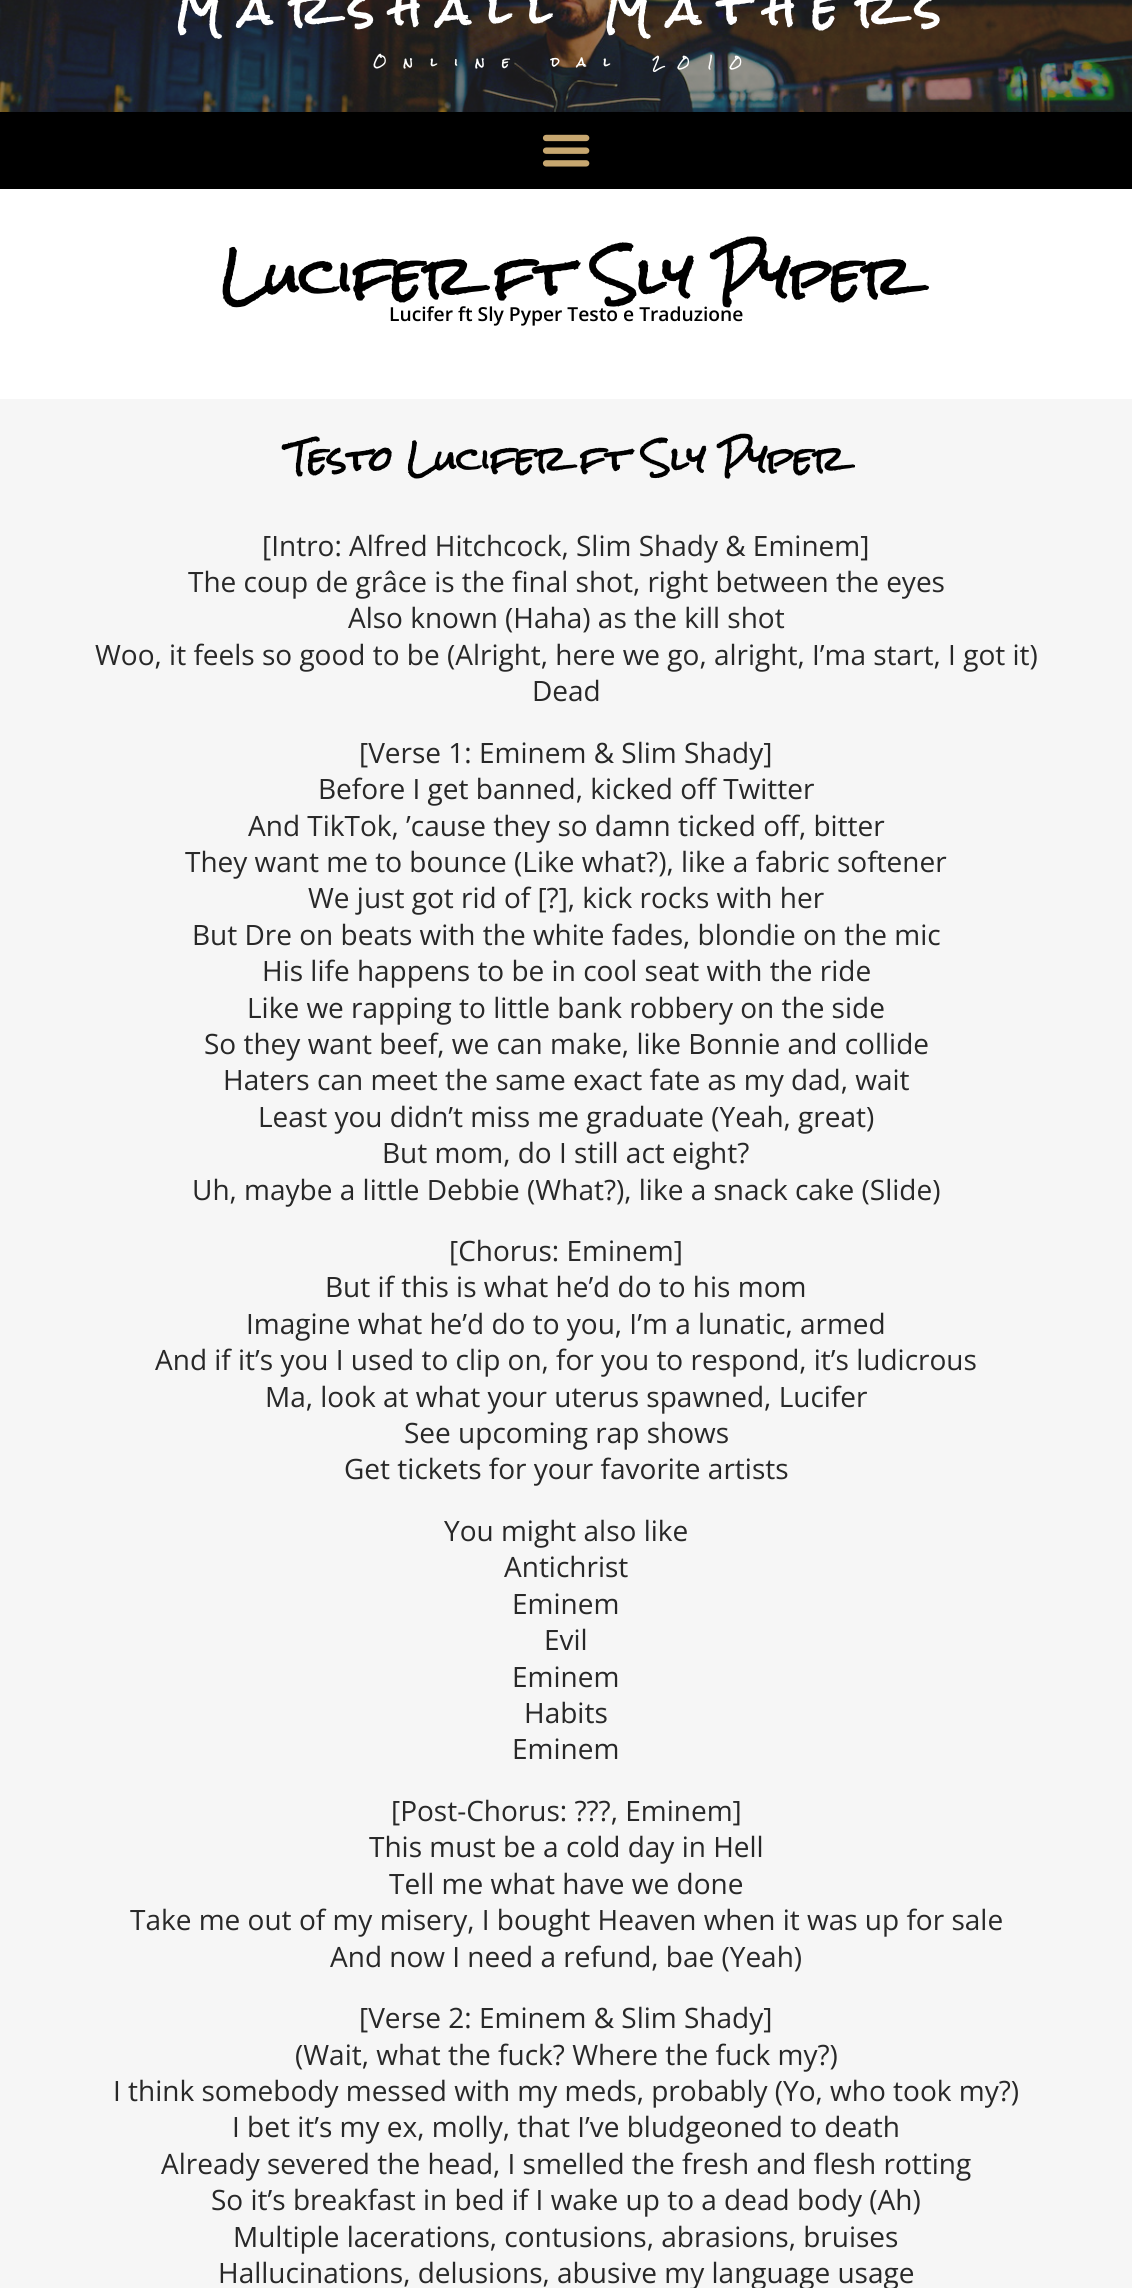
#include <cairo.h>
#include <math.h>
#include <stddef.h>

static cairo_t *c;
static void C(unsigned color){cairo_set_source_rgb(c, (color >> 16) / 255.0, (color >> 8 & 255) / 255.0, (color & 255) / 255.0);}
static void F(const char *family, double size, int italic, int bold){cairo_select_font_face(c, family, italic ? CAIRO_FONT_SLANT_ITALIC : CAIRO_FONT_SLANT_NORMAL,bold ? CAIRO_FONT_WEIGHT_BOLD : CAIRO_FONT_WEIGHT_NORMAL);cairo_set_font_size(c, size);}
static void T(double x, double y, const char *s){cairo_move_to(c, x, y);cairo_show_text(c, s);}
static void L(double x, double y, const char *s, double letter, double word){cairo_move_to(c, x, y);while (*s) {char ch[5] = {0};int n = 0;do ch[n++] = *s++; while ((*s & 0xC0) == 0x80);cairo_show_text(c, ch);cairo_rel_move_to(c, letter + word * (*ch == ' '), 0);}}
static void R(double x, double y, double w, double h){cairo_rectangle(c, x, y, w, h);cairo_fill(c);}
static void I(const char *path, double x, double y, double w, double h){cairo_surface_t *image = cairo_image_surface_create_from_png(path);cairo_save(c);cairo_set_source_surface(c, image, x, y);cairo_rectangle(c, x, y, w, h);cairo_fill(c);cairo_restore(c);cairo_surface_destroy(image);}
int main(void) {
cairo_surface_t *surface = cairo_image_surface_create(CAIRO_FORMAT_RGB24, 1132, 2288);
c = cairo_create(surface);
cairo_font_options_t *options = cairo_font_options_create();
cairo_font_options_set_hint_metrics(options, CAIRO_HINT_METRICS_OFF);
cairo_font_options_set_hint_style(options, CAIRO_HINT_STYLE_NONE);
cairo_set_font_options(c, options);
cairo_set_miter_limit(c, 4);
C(0xffffff);
cairo_paint(c);
I("1.png",0,0,1132,112);
F("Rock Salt",43.75,0,1);
C(0xffffff);
L(175,26,"Marshall Mathers",17.5,0);
F("Rock Salt",12.25,0,1);
L(373,67,"Online dal",17.5,2);
L(652,67,"2010",17.5,0);
C(0x000000);
R(0,112,1132,77);
I("2.png",542,134,48,33);
F("Rock Salt",52.5,0,1);
T(220,297,"Lucifer ft Sly Pyper");
F("Open Sans SemiBold",19.25,0,0);
T(389,321,"Lucifer ft Sly Pyper Testo e Traduzione");
C(0xf6f6f6);
R(0,399,1132,1889);
F("Rock Salt",33.25,0,1);
C(0x000000);
T(287,472,"Testo Lucifer ft Sly Pyper");
F("Open Sans",28,0,0);
C(0x282828);
T(262,556,"[Intro: Alfred Hitchcock, Slim Shady & Eminem]");
T(188,592,"The coup de grâce is the final shot, right between the eyes");
T(348,628,"Also known (Haha) as the kill shot");
T(95,665,"Woo, it feels so good to be (Alright, here we go, alright, I’ma start, I got it)");
T(532,701,"Dead");
T(359,763,"[Verse 1: Eminem & Slim Shady]");
T(318,799,"Before I get banned, kicked off Twitter");
T(248,836,"And TikTok, ’cause they so damn ticked off, bitter");
T(185,872,"They want me to bounce (Like what?), like a fabric softener");
T(308,908,"We just got rid of [?], kick rocks with her");
T(192,945,"But Dre on beats with the white fades, blondie on the mic");
T(262,981,"His life happens to be in cool seat with the ride");
T(247,1018,"Like we rapping to little bank robbery on the side");
T(204,1054,"So they want beef, we can make, like Bonnie and collide");
T(223,1090,"Haters can meet the same exact fate as my dad, wait");
T(258,1127,"Least you didn’t miss me graduate (Yeah, great)");
T(382,1163,"But mom, do I still act eight?");
T(192,1200,"Uh, maybe a little Debbie (What?), like a snack cake (Slide)");
T(449,1261,"[Chorus: Eminem]");
T(325,1297,"But if this is what he’d do to his mom");
T(246,1334,"Imagine what he’d do to you, I’m a lunatic, armed");
T(155,1370,"And if it’s you I used to clip on, for you to respond, it’s ludicrous");
T(265,1407,"Ma, look at what your uterus spawned, Lucifer");
T(404,1443,"See upcoming rap shows");
T(344,1479,"Get tickets for your favorite artists");
T(444,1541,"You might also like");
T(504,1577,"Antichrist");
T(512,1614,"Eminem");
T(544,1650,"Evil");
T(512,1687,"Eminem");
T(524,1723,"Habits");
T(512,1759,"Eminem");
T(391,1821,"[Post-Chorus: ?\077?, Eminem]");
T(369,1857,"This must be a cold day in Hell");
T(389,1894,"Tell me what have we done");
T(130,1930,"Take me out of my misery, I bought Heaven when it was up for sale");
T(330,1967,"And now I need a refund, bae (Yeah)");
T(359,2028,"[Verse 2: Eminem & Slim Shady]");
T(295,2065,"(Wait, what the fuck? Where the fuck my?)");
T(113,2101,"I think somebody messed with my meds, probably (Yo, who took my?)");
T(232,2137,"I bet it’s my ex, molly, that I’ve bludgeoned to death");
T(161,2174,"Already severed the head, I smelled the fresh and flesh rotting");
T(211,2210,"So it’s breakfast in bed if I wake up to a dead body (Ah)");
T(233,2247,"Multiple lacerations, contusions, abrasions, bruises");
T(218,2283,"Hallucinations, delusions, abusive my language usage");
cairo_surface_write_to_png(surface, "o.png");
cairo_font_options_destroy(options);
cairo_destroy(c);
cairo_surface_destroy(surface);
return 0;
}
